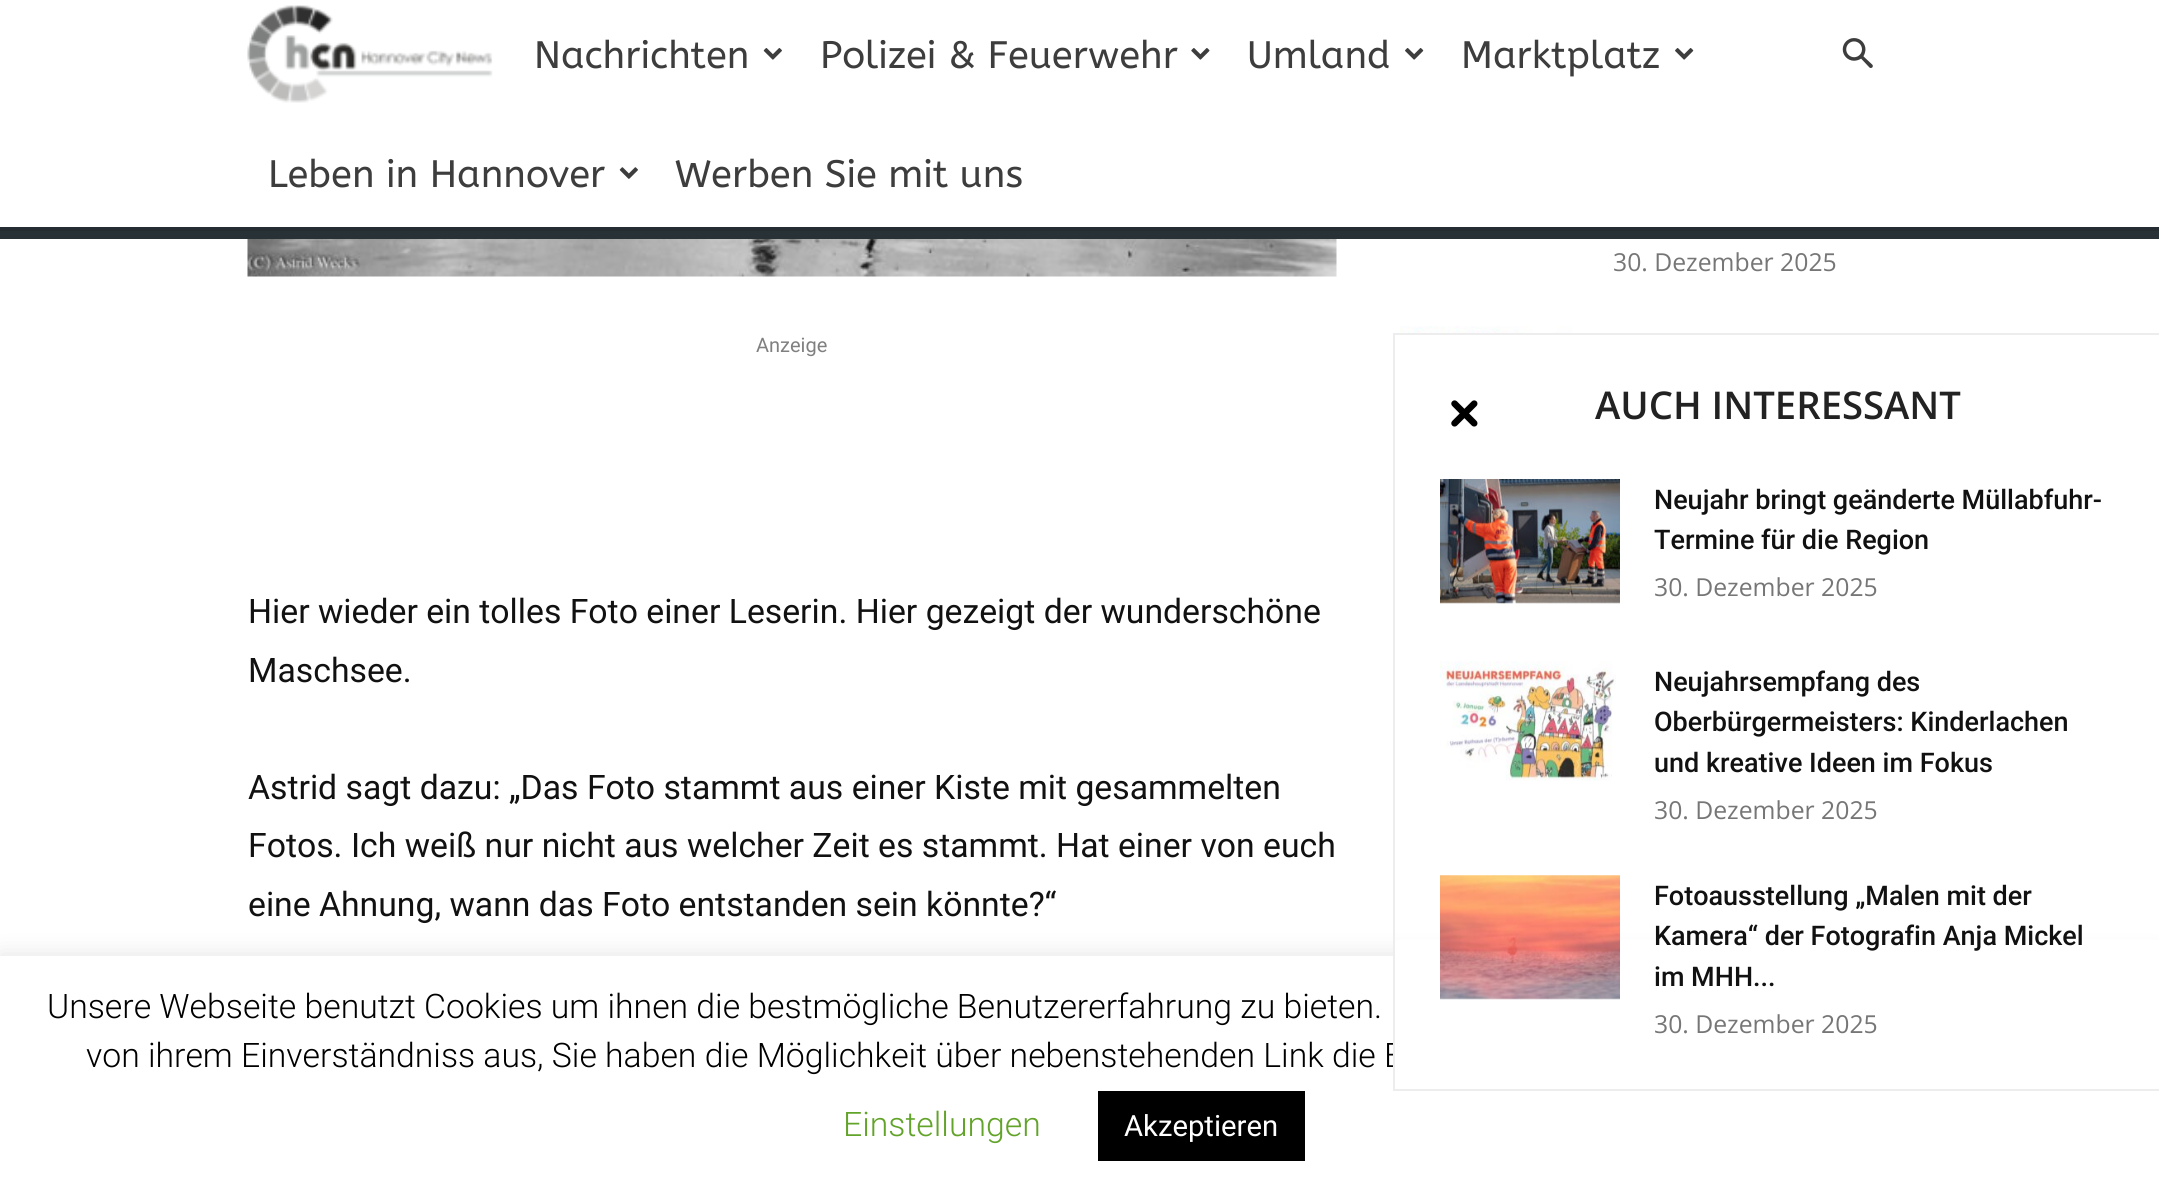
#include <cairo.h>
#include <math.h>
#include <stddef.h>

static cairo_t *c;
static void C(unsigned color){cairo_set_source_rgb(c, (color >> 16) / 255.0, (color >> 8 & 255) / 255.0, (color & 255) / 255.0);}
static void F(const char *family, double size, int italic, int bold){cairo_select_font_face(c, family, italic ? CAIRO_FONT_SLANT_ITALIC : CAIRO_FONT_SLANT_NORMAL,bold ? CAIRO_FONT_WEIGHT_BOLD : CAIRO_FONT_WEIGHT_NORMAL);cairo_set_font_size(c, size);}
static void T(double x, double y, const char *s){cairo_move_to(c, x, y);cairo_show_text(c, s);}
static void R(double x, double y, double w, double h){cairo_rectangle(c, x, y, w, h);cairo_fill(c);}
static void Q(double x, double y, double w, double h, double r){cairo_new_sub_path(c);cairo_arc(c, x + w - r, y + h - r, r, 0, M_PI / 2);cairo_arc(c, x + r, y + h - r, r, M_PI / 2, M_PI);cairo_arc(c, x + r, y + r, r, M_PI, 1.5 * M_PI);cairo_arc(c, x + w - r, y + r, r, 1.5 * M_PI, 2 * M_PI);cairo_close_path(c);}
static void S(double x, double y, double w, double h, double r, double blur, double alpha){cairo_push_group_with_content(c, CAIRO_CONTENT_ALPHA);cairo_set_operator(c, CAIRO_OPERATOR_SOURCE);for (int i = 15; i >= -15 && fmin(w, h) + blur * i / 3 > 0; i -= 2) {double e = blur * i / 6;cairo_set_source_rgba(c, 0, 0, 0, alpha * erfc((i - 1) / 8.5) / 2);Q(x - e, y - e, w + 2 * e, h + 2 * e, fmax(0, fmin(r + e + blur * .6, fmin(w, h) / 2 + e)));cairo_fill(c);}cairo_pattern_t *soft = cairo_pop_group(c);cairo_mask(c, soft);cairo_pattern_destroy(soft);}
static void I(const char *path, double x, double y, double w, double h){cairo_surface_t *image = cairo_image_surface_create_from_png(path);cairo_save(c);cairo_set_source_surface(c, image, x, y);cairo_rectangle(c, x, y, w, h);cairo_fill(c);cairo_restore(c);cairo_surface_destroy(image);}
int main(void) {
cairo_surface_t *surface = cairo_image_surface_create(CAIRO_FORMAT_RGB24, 2159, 1198);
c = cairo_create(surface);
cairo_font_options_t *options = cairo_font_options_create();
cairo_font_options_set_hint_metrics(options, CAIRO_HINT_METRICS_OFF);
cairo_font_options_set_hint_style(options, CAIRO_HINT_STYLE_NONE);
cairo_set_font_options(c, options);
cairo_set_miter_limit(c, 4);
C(0xffffff);
cairo_paint(c);
I("1.png",247,5,246,98);
F("ABeeZee",38.25,0,0);
C(0x3d3d3d);
T(534,68,"Nachrichten");
I("2.png",763,48,19,12);
T(820,68,"Polizei & Feuerwehr");
I("3.png",1191,48,19,12);
T(1247,68,"Umland");
I("4.png",1405,48,19,12);
T(1461,68,"Marktplatz");
I("4.png",1675,48,19,12);
T(268,187,"Leben in Hannover");
I("5.png",619,167,19,12);
T(675,187,"Werben Sie mit uns");
I("6.png",1842,38,31,30);
C(0x283136);
R(0,231,2159,8);
C(0x252d32);
R(0,227,2159,4);
F("Open Sans",24.75,0,0);
C(0x767676);
T(1613,271,"30. Dezember 2025");
I("7.png",1400,326,175,7);
I("8.png",247,239,1090,38);
F("Roboto",20,0,0);
C(0x808080);
T(756,352,"Anzeige");
F("Roboto",33.75,0,0);
C(0x111111);
T(248,623,"Hier wieder ein tolles Foto einer Leserin. Hier gezeigt der wunderschöne");
T(248,682,"Maschsee.");
T(248,799,"Astrid sagt dazu: „Das Foto stammt aus einer Kiste mit gesammelten");
T(248,857,"Fotos. Ich weiß nur nicht aus welcher Zeit es stammt. Hat einer von euch");
T(248,916,"eine Ahnung, wann das Foto entstanden sein könnte?“");
C(0xacabab);
S(0,954,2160,243,0,11,.3);
C(0xffffff);
R(0,956,2159,242);
F("Roboto Light",33.75,0,0);
C(0x000000);
T(86,1067,"von ihrem Einverständniss aus, Sie haben die Möglichkeit über nebenstehenden Link die E");
C(0xffffff);
R(1395,940,764,127);
C(0xededed);
R(1393,333,766,2);
R(1393,1089,766,2);
R(1393,333,2,758);
I("9.png",1451,400,27,27);
F("Open Sans SemiBold",38.25,0,0);
C(0x222222);
T(1595,419,"AUCH INTERESSANT");
I("10.png",1440,479,180,125);
F("Roboto Medium",27,0,0);
C(0x111111);
T(1654,509,"Neujahr bringt geänderte Müllabfuhr-");
T(1654,549,"Termine für die Region");
F("Open Sans",24.75,0,0);
C(0x767676);
T(1654,596,"30. Dezember 2025");
I("11.png",1440,661,176,120);
F("Roboto Medium",27,0,0);
C(0x111111);
T(1654,691,"Neujahrsempfang des");
T(1654,731,"Oberbürgermeisters: Kinderlachen");
T(1654,772,"und kreative Ideen im Fokus");
F("Open Sans",24.75,0,0);
C(0x767676);
T(1654,819,"30. Dezember 2025");
I("12.png",1440,875,180,125);
F("Roboto Medium",27,0,0);
C(0x111111);
T(1654,905,"Fotoausstellung „Malen mit der");
T(1654,945,"Kamera“ der Fotografin Anja Mickel");
T(1654,986,"im MHH...");
F("Open Sans",24.75,0,0);
C(0x767676);
T(1654,1033,"30. Dezember 2025");
F("Roboto Light",33.75,0,0);
C(0x000000);
T(47,1018,"Unsere Webseite benutzt Cookies um ihnen die bestmögliche Benutzererfahrung zu bieten.");
C(0x62a329);
T(843,1136,"Einstellungen");
C(0x000000);
R(1098,1091,207,70);
F("Roboto",29.25,0,0);
C(0xffffff);
T(1124,1136,"Akzeptieren");
cairo_surface_write_to_png(surface, "o.png");
cairo_font_options_destroy(options);
cairo_destroy(c);
cairo_surface_destroy(surface);
return 0;
}
